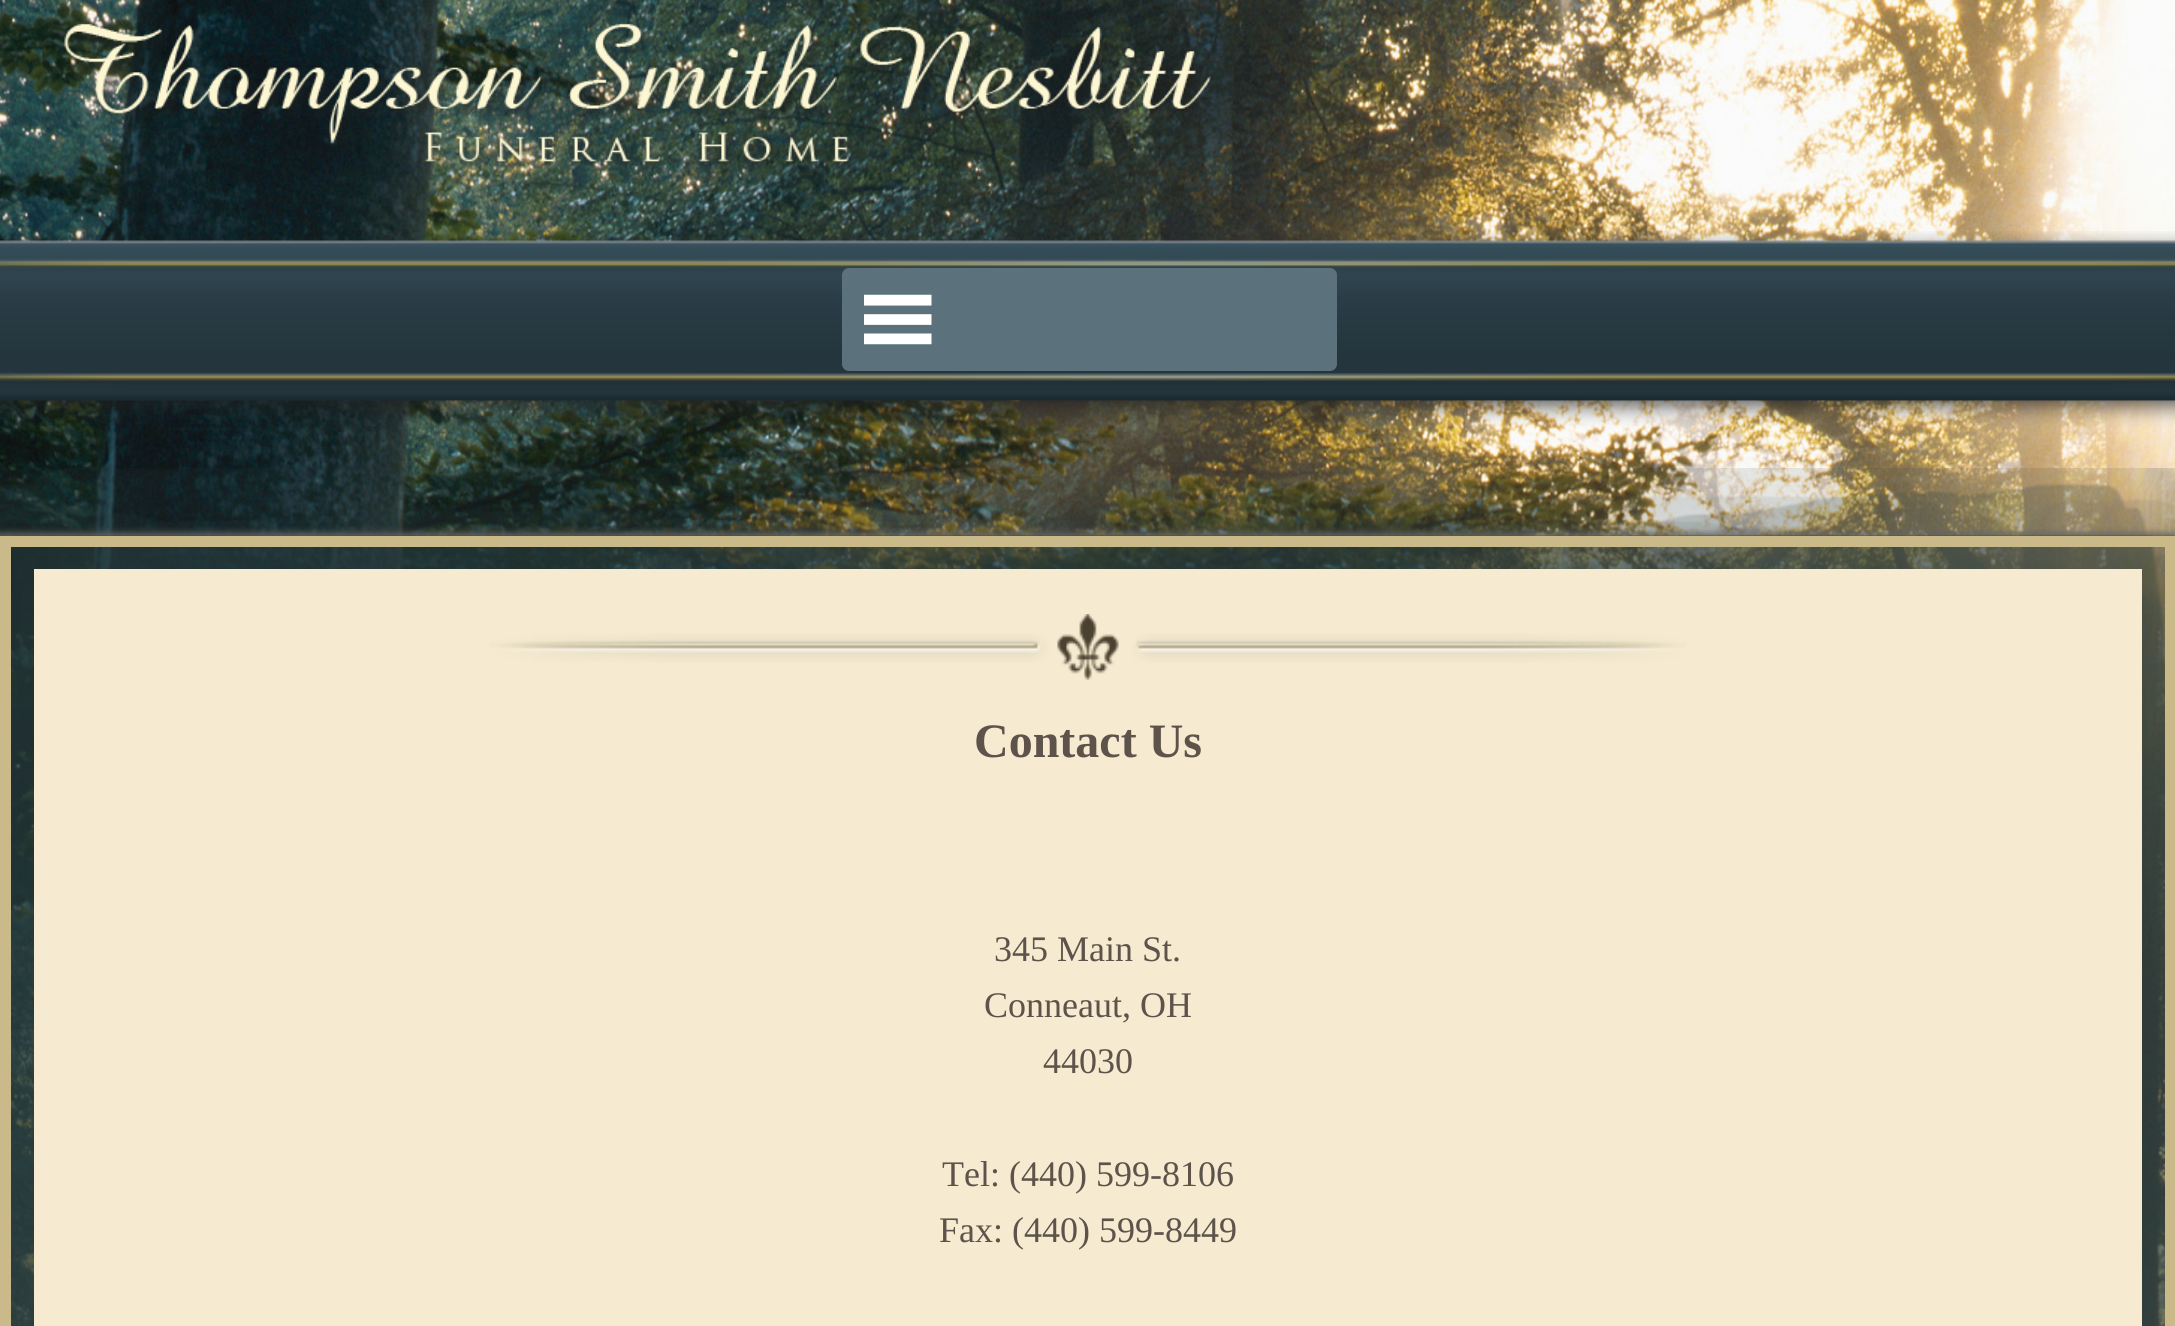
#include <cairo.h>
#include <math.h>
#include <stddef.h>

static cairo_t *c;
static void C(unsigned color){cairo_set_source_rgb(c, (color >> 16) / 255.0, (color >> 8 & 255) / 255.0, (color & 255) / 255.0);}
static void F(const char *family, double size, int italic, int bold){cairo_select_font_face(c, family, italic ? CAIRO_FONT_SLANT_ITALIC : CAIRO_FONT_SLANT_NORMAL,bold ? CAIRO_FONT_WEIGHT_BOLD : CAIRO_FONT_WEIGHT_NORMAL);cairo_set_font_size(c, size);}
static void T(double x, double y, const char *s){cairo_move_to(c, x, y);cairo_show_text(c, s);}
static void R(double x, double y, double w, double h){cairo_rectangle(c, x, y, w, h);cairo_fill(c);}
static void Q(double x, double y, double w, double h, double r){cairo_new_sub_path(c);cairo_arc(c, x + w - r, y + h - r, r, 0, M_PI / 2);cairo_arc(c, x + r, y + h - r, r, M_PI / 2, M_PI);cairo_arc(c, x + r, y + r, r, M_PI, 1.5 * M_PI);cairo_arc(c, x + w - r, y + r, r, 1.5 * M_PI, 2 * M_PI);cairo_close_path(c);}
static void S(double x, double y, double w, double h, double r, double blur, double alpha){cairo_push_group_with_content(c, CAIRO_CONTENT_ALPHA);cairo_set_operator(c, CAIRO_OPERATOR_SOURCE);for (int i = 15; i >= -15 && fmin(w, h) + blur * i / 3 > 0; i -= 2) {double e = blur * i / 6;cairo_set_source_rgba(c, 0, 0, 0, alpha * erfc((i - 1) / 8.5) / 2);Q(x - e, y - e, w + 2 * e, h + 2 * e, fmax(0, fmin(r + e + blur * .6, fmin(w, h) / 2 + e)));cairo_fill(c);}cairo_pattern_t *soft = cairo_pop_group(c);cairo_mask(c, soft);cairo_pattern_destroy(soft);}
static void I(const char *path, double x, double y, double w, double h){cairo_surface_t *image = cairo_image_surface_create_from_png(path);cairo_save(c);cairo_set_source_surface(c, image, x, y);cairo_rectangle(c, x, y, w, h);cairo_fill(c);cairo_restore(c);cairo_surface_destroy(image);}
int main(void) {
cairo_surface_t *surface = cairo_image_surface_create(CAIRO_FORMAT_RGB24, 2175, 1326);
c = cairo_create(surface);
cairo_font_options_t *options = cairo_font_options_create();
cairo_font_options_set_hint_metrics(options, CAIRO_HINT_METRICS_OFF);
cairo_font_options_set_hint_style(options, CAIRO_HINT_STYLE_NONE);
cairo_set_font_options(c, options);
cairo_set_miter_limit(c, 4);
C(0xffffff);
cairo_paint(c);
I("1.png",0,0,2175,1326);
I("2.png",64,23,1147,147);
I("3.png",0,231,2175,199);
C(0x5b717b);
Q(842,268,495,103,7);
cairo_fill(c);
I("4.png",864,294,68,51);
I("5.png",0,468,2175,858);
cairo_save(c);
cairo_rectangle(c,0,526,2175,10);
cairo_clip(c);
C(0x666666);
S(-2,533,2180,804,0,3.5,1);
cairo_restore(c);
I("6.png",0,535,2175,791);
cairo_rectangle(c,5.5,541.5,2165,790);
C(0xcaba89);
cairo_set_line_width(c,11);
cairo_stroke(c);
C(0xf6ebd0);
R(34,569,2108,757);
I("7.png",489,614,1198,66);
F("Liberation Serif",48,0,1);
C(0x5d534b);
T(974,757,"Contact Us");
F("Liberation Serif",36,0,0);
T(994,961,"345 Main St.");
T(984,1017,"Conneaut, OH");
T(1043,1073,"44030");
T(942,1186,"Tel: (440) 599-8106");
T(939,1242,"Fax: (440) 599-8449");
cairo_surface_write_to_png(surface, "o.png");
cairo_font_options_destroy(options);
cairo_destroy(c);
cairo_surface_destroy(surface);
return 0;
}
